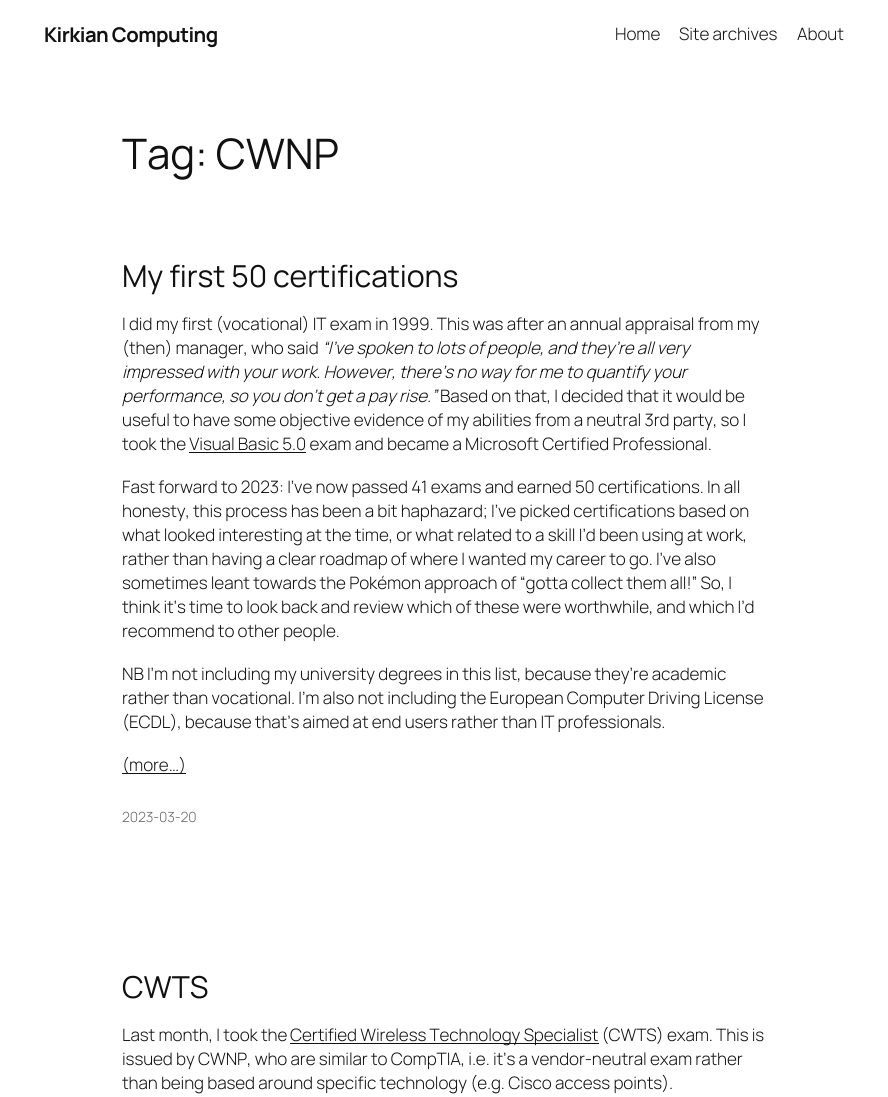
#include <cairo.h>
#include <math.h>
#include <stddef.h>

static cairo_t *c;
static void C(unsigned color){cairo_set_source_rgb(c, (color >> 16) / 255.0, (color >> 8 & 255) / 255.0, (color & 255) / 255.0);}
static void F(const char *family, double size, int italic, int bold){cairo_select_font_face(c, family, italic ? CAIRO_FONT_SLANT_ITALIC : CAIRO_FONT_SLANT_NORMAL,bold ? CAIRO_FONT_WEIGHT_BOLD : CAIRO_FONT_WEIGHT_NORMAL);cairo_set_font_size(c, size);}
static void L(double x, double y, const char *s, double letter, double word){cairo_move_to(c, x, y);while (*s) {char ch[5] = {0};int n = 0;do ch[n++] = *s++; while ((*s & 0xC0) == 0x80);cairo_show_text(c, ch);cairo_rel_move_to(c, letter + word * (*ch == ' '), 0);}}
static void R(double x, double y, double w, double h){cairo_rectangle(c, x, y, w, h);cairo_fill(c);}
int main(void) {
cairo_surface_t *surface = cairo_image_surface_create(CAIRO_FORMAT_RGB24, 888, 1097);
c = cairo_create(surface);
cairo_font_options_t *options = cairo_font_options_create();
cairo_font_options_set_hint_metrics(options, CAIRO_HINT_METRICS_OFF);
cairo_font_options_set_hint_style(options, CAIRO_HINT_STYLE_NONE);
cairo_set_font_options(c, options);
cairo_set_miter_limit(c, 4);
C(0xffffff);
cairo_paint(c);
F("Manrope",20.25,0,1);
C(0x111111);
L(44,42,"Kirkian Computing",-.5,0);
F("Manrope Light",17.1,0,0);
L(615,40,"Home",-.1,0);
L(679,40,"Site archives",-.1,0);
L(797,40,"About",-.1,0);
F("Manrope",42,0,0);
L(122,169,"Tag: CWNP",-.1,0);
F("Manrope",30.25,0,0);
L(122,287,"My first 50 certifications",-.1,0);
F("Manrope Light",17.1,0,0);
L(122,330,"I did my first (vocational) IT exam in 1999. This was after an annual appraisal from my",-.1,0);
L(122,354,"(then) manager, who said",-.1,0);
F("Manrope Light",17.1,1,0);
L(322,354,"“I’ve spoken to lots of people, and they’re all very",-.1,0);
L(122,378,"impressed with your work. However, there’s no way for me to quantify your",-.1,0);
L(122,402,"performance, so you don’t get a pay rise.”",-.1,0);
F("Manrope Light",17.1,0,0);
L(440,402,"Based on that, I decided that it would be",-.1,0);
L(122,426,"useful to have some objective evidence of my abilities from a neutral 3rd party, so I",-.1,0);
L(122,450,"took the Visual Basic 5.0 exam and became a Microsoft Certified Professional.",-.1,0);
R(189,452,117,1);
L(122,493,"Fast forward to 2023: I’ve now passed 41 exams and earned 50 certifications. In all",-.1,0);
L(122,517,"honesty, this process has been a bit haphazard; I’ve picked certifications based on",-.1,0);
L(122,541,"what looked interesting at the time, or what related to a skill I’d been using at work,",-.1,0);
L(122,565,"rather than having a clear roadmap of where I wanted my career to go. I’ve also",-.1,0);
L(122,589,"sometimes leant towards the Pokémon approach of “gotta collect them all!” So, I",-.1,0);
L(122,613,"think it’s time to look back and review which of these were worthwhile, and which I’d",-.1,0);
L(122,637,"recommend to other people.",-.1,0);
L(122,680,"NB I’m not including my university degrees in this list, because they’re academic",-.1,0);
L(122,704,"rather than vocational. I’m also not including the European Computer Driving License",-.1,0);
L(122,728,"(ECDL), because that’s aimed at end users rather than IT professionals.",-.1,0);
R(122,773,64,1);
L(122,771,"(more…)",-.1,0);
F("Manrope Light",14,0,0);
C(0x686868);
L(122,822,"2023-03-20",-.1,0);
F("Manrope",30.25,0,0);
C(0x111111);
L(122,998,"CWTS",-.1,0);
F("Manrope Light",17.1,0,0);
L(122,1041,"Last month, I took the",-.1,0);
R(290,1043,309,1);
L(290,1041,"Certified Wireless Technology Specialist (CWTS) exam. This is",-.1,0);
L(122,1065,"issued by CWNP, who are similar to CompTIA, i.e. it’s a vendor-neutral exam rather",-.1,0);
L(122,1089,"than being based around specific technology (e.g. Cisco access points).",-.1,0);
cairo_surface_write_to_png(surface, "o.png");
cairo_font_options_destroy(options);
cairo_destroy(c);
cairo_surface_destroy(surface);
return 0;
}
